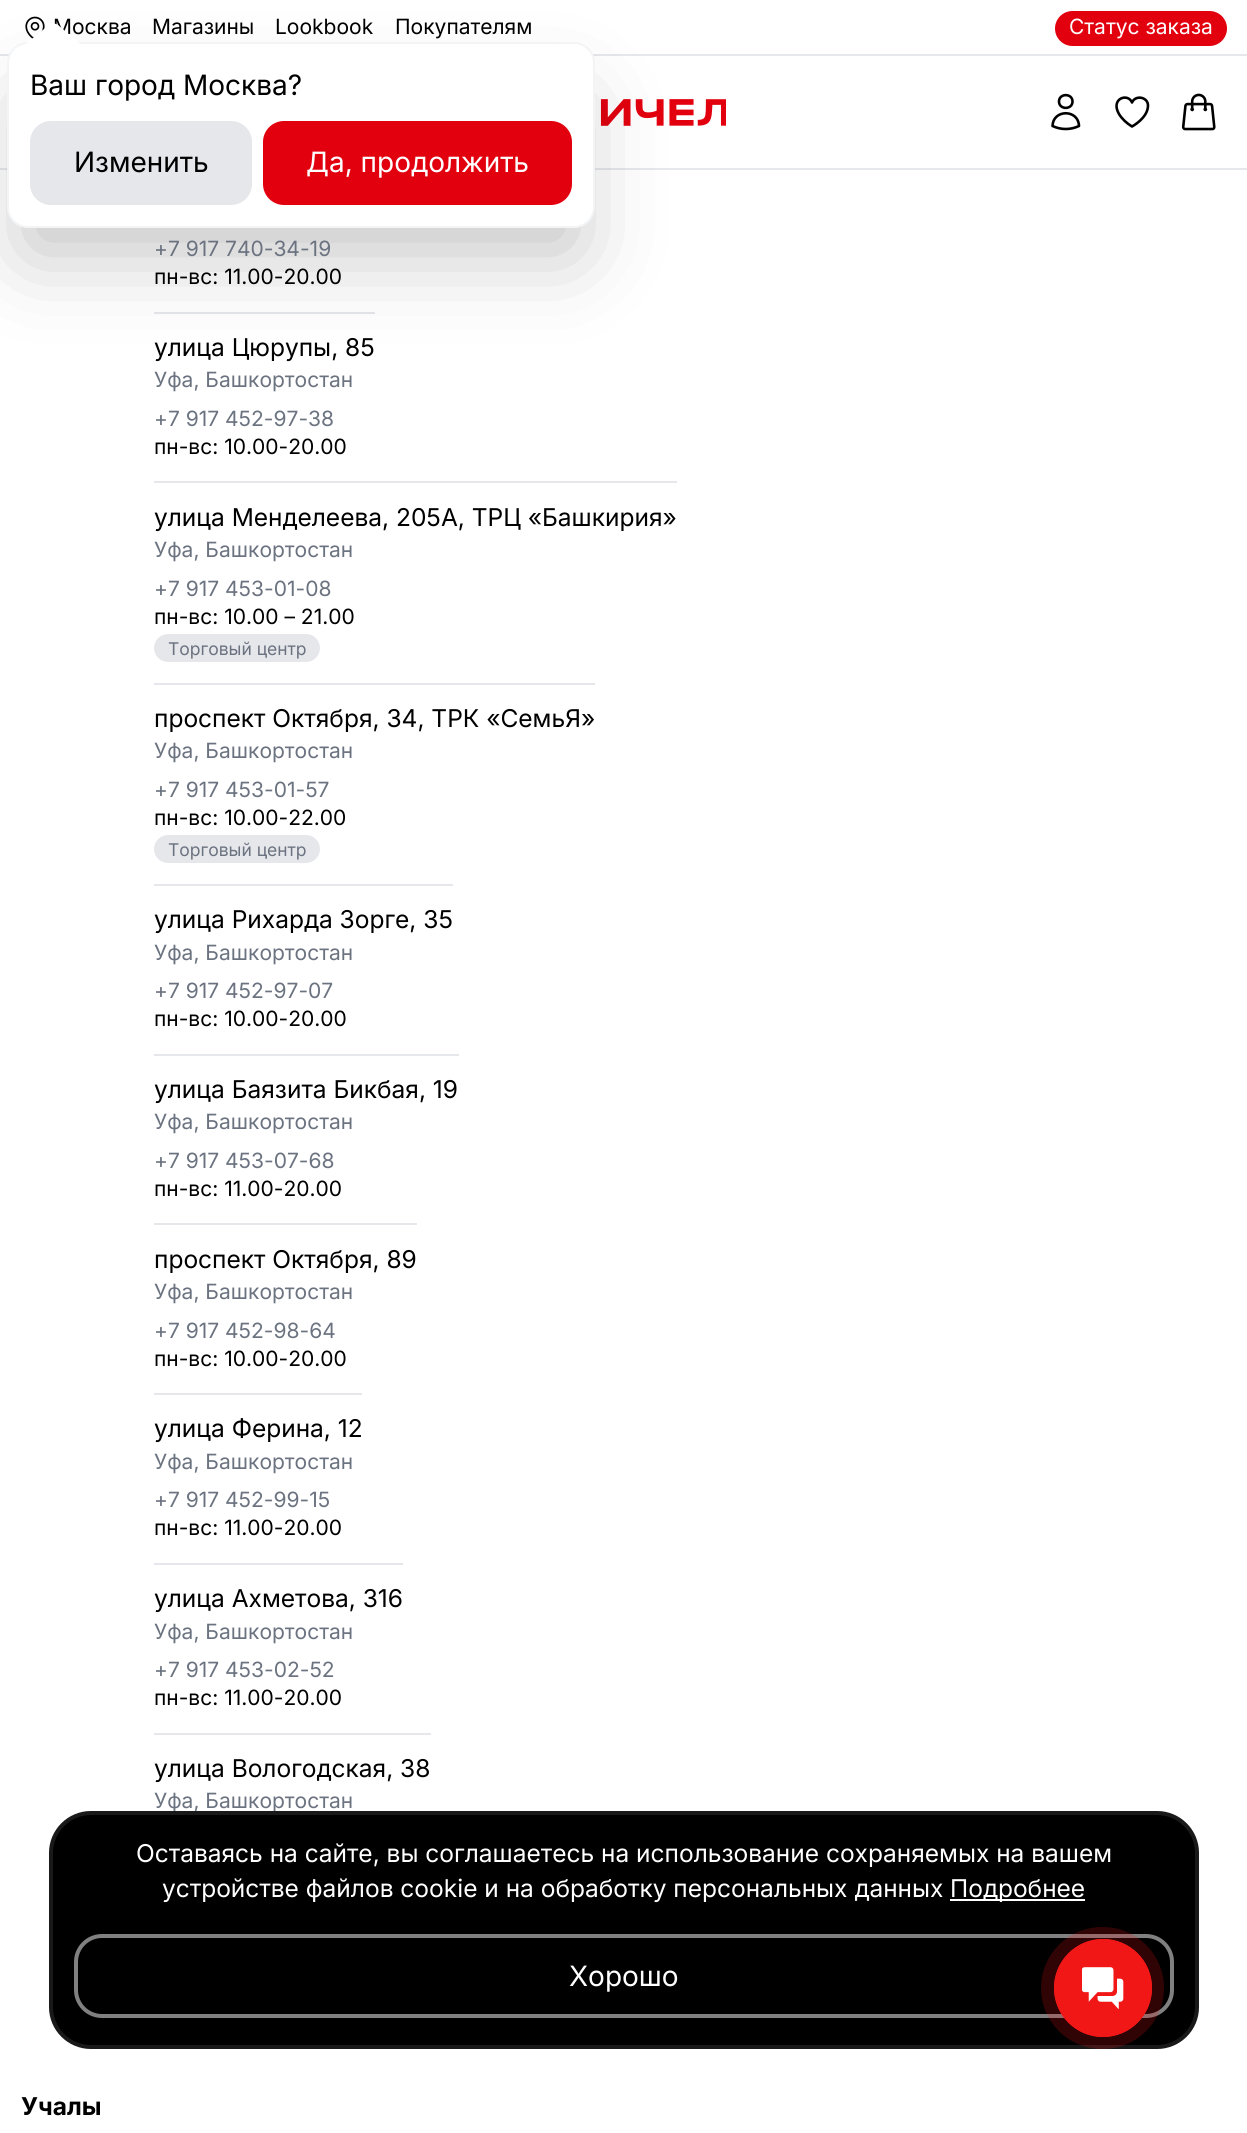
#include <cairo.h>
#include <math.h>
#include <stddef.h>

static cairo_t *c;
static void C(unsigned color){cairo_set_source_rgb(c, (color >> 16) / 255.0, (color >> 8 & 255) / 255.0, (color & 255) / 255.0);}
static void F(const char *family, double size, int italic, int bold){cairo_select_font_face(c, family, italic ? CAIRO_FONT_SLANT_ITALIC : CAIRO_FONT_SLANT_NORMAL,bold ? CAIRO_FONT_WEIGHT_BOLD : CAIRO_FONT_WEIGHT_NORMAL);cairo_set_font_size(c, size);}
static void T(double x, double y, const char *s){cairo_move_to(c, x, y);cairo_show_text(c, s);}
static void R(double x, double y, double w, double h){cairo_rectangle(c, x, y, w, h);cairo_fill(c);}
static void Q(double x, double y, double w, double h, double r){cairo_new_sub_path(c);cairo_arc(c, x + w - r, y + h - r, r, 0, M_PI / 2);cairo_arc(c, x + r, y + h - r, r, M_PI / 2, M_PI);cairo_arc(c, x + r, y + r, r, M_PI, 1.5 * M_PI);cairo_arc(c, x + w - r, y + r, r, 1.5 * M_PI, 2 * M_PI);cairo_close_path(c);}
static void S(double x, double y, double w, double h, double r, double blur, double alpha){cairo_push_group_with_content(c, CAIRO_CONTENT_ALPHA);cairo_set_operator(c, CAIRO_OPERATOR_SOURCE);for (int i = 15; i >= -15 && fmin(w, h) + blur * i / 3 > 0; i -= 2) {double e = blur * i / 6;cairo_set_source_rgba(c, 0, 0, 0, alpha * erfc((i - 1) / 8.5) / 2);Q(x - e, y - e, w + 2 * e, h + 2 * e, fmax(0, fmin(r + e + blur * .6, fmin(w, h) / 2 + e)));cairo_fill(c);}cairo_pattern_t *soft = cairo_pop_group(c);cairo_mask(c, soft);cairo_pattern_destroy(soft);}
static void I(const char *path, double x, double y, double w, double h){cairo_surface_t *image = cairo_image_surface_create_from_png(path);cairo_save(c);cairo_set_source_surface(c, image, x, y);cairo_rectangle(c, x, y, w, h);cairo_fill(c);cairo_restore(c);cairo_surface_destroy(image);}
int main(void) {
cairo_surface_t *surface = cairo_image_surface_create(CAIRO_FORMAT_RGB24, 1247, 2133);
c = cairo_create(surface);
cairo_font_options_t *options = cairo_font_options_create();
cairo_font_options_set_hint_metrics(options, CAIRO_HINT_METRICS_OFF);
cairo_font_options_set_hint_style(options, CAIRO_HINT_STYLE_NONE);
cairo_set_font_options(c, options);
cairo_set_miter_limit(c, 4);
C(0xffffff);
cairo_paint(c);
C(0xe5e7eb);
R(0,168,1247,2);
R(0,54,1247,2);
I("1.png",25,16,20,23);
F("Inter",21,0,0);
C(0x000000);
T(53,34,"Москва");
I("2.png",600,99,126,27);
C(0xe5e7eb);
R(154,312,221,2);
C(0x000000);
S(28,107,546,143,0,44,.25);
C(0xffffff);
Q(8,43,586,184,20);
cairo_fill_preserve(c);
C(0xf3f4f6);
cairo_stroke(c);
C(0xffffff);
cairo_new_path(c);
cairo_move_to(c,49,25);
cairo_line_to(c,28,42);
cairo_curve_to(c,23,47,17,49,10,49);
cairo_line_to(c,97,49);
cairo_curve_to(c,90,49,84,47,78,42);
cairo_line_to(c,58,25);
cairo_curve_to(c,55,23,51,23,49,25);
cairo_close_path(c);
cairo_fill(c);
F("Inter",28,0,0);
C(0x000000);
T(30,95,"Ваш город Москва?");
C(0xe5e7eb);
Q(31,122,220,82,20);
cairo_fill_preserve(c);
cairo_stroke(c);
C(0x000000);
T(74,172,"Изменить");
C(0xe3000e);
Q(264,122,307,82,20);
cairo_fill_preserve(c);
cairo_stroke(c);
C(0xffffff);
T(306,172,"Да, продолжить");
F("Inter",21,0,0);
C(0x000000);
T(152,34,"Магазины");
T(275,34,"Lookbook");
T(395,34,"Покупателям");
C(0xe3000e);
Q(1055,11,172,35,17.5);
cairo_fill(c);
C(0xffffff);
T(1069,34,"Статус заказа");
cairo_new_path(c);
cairo_move_to(c,1072.5,101.5);
cairo_curve_to(c,1072.5,110,1059,110,1059,101.5);
cairo_curve_to(c,1059,93,1072.5,93,1072.5,101.5);
cairo_close_path(c);
cairo_move_to(c,1052.5,126);
cairo_curve_to(c,1053,109,1078.5,109,1079,126);
cairo_curve_to(c,1070.5,130,1061,130,1052.5,126);
cairo_close_path(c);
C(0x000000);
cairo_set_line_width(c,2.6);
cairo_set_line_cap(c,CAIRO_LINE_CAP_ROUND);
cairo_set_line_join(c,CAIRO_LINE_JOIN_ROUND);
cairo_stroke(c);
cairo_new_path(c);
cairo_move_to(c,1148,105.5);
cairo_curve_to(c,1148,97,1135.5,94.5,1132,102.5);
cairo_curve_to(c,1128,92.5,1110,98.5,1119,114);
cairo_curve_to(c,1122,119,1127,123.5,1132,126.5);
cairo_curve_to(c,1132,126.5,1148,118,1148,105.5);
cairo_close_path(c);
cairo_stroke(c);
I("3.png",1181,93,35,38);
C(0x6b7280);
T(154,256,"+7 917 740-34-19");
C(0x000000);
T(154,284,"пн-вс: 11.00-20.00");
F("Inter",24.5,0,0);
T(154,356,"улица Цюрупы, 85");
F("Inter",21,0,0);
C(0x6b7280);
T(154,387,"Уфа, Башкортостан");
T(154,426,"+7 917 452-97-38");
C(0x000000);
T(154,454,"пн-вс: 10.00-20.00");
C(0xe5e7eb);
R(154,481,523,2);
F("Inter",24.5,0,0);
C(0x000000);
T(154,526,"улица Менделеева, 205А, ТРЦ «Башкирия»");
F("Inter",21,0,0);
C(0x6b7280);
T(154,557,"Уфа, Башкортостан");
T(154,596,"+7 917 453-01-08");
C(0x000000);
T(154,624,"пн-вс: 10.00 – 21.00");
C(0xe5e7eb);
Q(154,634,166,28,14);
cairo_fill(c);
F("Inter",17.5,0,0);
C(0x6b7280);
T(168,655,"Торговый центр");
C(0xe5e7eb);
R(154,683,441,2);
F("Inter",24.5,0,0);
C(0x000000);
T(154,727,"проспект Октября, 34, ТРК «СемьЯ»");
F("Inter",21,0,0);
C(0x6b7280);
T(154,758,"Уфа, Башкортостан");
T(154,797,"+7 917 453-01-57");
C(0x000000);
T(154,825,"пн-вс: 10.00-22.00");
C(0xe5e7eb);
Q(154,835,166,28,14);
cairo_fill(c);
F("Inter",17.5,0,0);
C(0x6b7280);
T(168,856,"Торговый центр");
C(0xe5e7eb);
R(154,884,299,2);
F("Inter",24.5,0,0);
C(0x000000);
T(154,928,"улица Рихарда Зорге, 35");
F("Inter",21,0,0);
C(0x6b7280);
T(154,960,"Уфа, Башкортостан");
T(154,998,"+7 917 452-97-07");
C(0x000000);
T(154,1026,"пн-вс: 10.00-20.00");
C(0xe5e7eb);
R(154,1054,305,2);
F("Inter",24.5,0,0);
C(0x000000);
T(154,1098,"улица Баязита Бикбая, 19");
F("Inter",21,0,0);
C(0x6b7280);
T(154,1129,"Уфа, Башкортостан");
T(154,1168,"+7 917 453-07-68");
C(0x000000);
T(154,1196,"пн-вс: 11.00-20.00");
C(0xe5e7eb);
R(154,1223,263,2);
F("Inter",24.5,0,0);
C(0x000000);
T(154,1268,"проспект Октября, 89");
F("Inter",21,0,0);
C(0x6b7280);
T(154,1299,"Уфа, Башкортостан");
T(154,1338,"+7 917 452-98-64");
C(0x000000);
T(154,1366,"пн-вс: 10.00-20.00");
C(0xe5e7eb);
R(154,1393,208,2);
F("Inter",24.5,0,0);
C(0x000000);
T(154,1437,"улица Ферина, 12");
F("Inter",21,0,0);
C(0x6b7280);
T(154,1469,"Уфа, Башкортостан");
T(154,1507,"+7 917 452-99-15");
C(0x000000);
T(154,1535,"пн-вс: 11.00-20.00");
C(0xe5e7eb);
R(154,1563,249,2);
F("Inter",24.5,0,0);
C(0x000000);
T(154,1607,"улица Ахметова, 316");
F("Inter",21,0,0);
C(0x6b7280);
T(154,1639,"Уфа, Башкортостан");
T(154,1677,"+7 917 453-02-52");
C(0x000000);
T(154,1705,"пн-вс: 11.00-20.00");
C(0xe5e7eb);
R(154,1733,277,2);
F("Inter",24.5,0,0);
C(0x000000);
T(154,1777,"улица Вологодская, 38");
F("Inter",21,0,0);
C(0x6b7280);
T(154,1808,"Уфа, Башкортостан");
F("Inter",24.5,0,1);
C(0x000000);
T(21,2115,"Учалы");
Q(49,1811,1150,238,42);
cairo_fill(c);
Q(51,1813,1146,234,40);
cairo_set_source_rgba(c,1,1,1,0.1);
cairo_set_line_width(c,4);
cairo_set_line_cap(c,CAIRO_LINE_CAP_BUTT);
cairo_set_line_join(c,CAIRO_LINE_JOIN_MITER);
cairo_stroke(c);
F("Inter",24.5,0,0);
C(0xffffff);
T(136,1862,"Оставаясь на сайте, вы соглашаетесь на использование сохраняемых на вашем");
T(162,1897,"устройстве файлов cookie и на обработку персональных данных");
R(950,1899,135,2);
T(950,1897,"Подробнее");
Q(76,1936,1096,80,26);
C(0x808080);
cairo_stroke(c);
F("Inter",28,0,0);
C(0xffffff);
T(569,1986,"Хорошо");
cairo_set_source_rgba(c,0.945,0.09,0.086,0.2);
Q(1041,1927,123,122,61);
cairo_fill(c);
cairo_arc(c,1103,1988,48.5,0,2 * M_PI);
C(0xf11716);
cairo_set_line_width(c,1);
cairo_stroke(c);
cairo_arc(c,1103,1988,49,0,2 * M_PI);
cairo_fill(c);
I("4.png",1082,1967,42,42);
cairo_surface_write_to_png(surface, "o.png");
cairo_font_options_destroy(options);
cairo_destroy(c);
cairo_surface_destroy(surface);
return 0;
}
